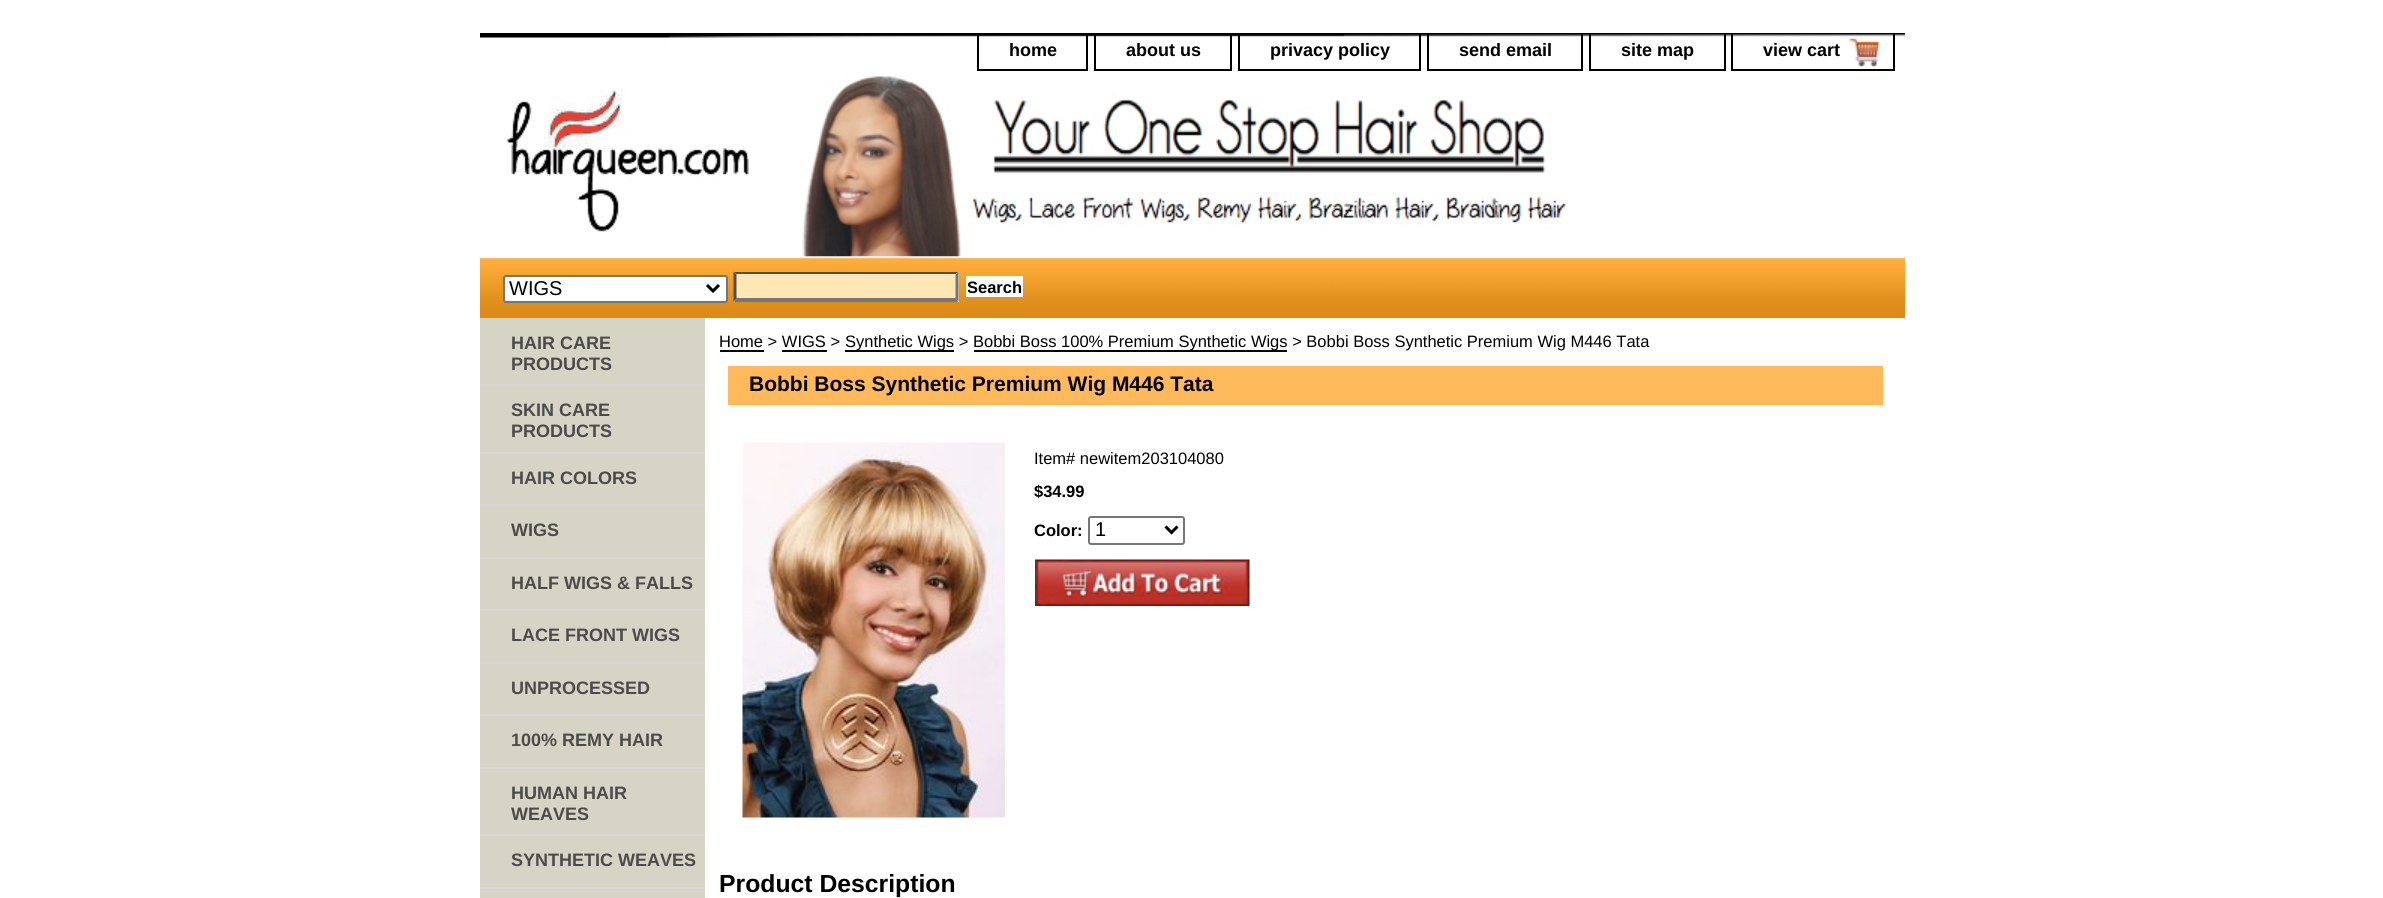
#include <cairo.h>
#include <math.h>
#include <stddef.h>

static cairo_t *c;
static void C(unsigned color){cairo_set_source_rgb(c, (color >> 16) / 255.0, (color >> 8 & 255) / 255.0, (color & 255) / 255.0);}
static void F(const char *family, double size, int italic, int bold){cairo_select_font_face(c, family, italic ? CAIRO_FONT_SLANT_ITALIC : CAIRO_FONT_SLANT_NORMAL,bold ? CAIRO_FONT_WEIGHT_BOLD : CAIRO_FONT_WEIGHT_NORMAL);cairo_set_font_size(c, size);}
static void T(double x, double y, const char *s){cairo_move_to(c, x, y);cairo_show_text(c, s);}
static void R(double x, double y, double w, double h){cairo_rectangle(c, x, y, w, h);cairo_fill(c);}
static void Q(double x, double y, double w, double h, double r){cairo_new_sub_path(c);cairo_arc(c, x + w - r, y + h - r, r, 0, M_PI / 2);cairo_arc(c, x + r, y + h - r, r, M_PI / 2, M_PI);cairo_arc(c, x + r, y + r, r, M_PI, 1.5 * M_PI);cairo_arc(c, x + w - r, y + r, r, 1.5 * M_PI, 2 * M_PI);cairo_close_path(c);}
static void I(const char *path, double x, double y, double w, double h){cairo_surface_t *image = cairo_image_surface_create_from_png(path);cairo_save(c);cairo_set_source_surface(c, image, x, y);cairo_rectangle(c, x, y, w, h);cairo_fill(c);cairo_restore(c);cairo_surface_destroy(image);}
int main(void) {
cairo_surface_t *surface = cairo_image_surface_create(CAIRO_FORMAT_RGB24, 2383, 898);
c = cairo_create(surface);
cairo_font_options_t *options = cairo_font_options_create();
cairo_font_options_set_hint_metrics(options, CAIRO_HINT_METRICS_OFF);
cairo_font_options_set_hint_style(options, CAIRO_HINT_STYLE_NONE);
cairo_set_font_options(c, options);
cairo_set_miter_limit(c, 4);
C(0xffffff);
cairo_paint(c);
I("1.png",480,33,1425,224);
C(0x000000);
R(1086,33,2,38);
R(977,69,111,2);
R(977,33,2,38);
F("Liberation Sans",18,0,1);
T(1009,56,"home");
R(1230,33,2,38);
R(1094,69,138,2);
R(1094,33,2,38);
T(1126,56,"about us");
R(1419,33,2,38);
R(1238,69,183,2);
R(1238,33,2,38);
T(1270,56,"privacy policy");
R(1581,33,2,38);
R(1427,69,156,2);
R(1427,33,2,38);
T(1459,56,"send email");
R(1724,33,2,38);
R(1589,69,136,2);
R(1589,33,2,38);
T(1621,56,"site map");
R(1893,33,2,38);
R(1731,69,164,2);
R(1731,33,2,38);
I("2.png",1849,37,31,30);
T(1763,56,"view cart");
I("3.png",506,88,243,144);
I("4.png",480,256,1425,62);
C(0xffffff);
Q(504,276,223,26,2);
cairo_fill_preserve(c);
C(0x767676);
cairo_stroke(c);
cairo_new_path(c);
cairo_move_to(c,707,285);
cairo_line_to(c,713,291);
cairo_line_to(c,719,285);
C(0x000000);
cairo_set_line_width(c,3);
cairo_stroke(c);
F("Liberation Sans",20,0,0);
T(509,295,"WIGS");
C(0xffe7b5);
R(734,272,225,30);
C(0x4f4f4f);
cairo_new_path(c);
cairo_move_to(c,734,272);
cairo_line_to(c,958,272);
cairo_line_to(c,956,274);
cairo_line_to(c,736,274);
cairo_close_path(c);
cairo_fill(c);
C(0x767676);
cairo_new_path(c);
cairo_move_to(c,958.5,271.5);
cairo_line_to(c,958.5,301.5);
cairo_line_to(c,955.5,298.5);
cairo_line_to(c,955.5,274.5);
cairo_close_path(c);
cairo_fill(c);
cairo_new_path(c);
cairo_move_to(c,958,302);
cairo_line_to(c,734,302);
cairo_line_to(c,736,298);
cairo_line_to(c,956,298);
cairo_close_path(c);
cairo_fill(c);
C(0x4f4f4f);
cairo_new_path(c);
cairo_move_to(c,733.5,301.5);
cairo_line_to(c,733.5,271.5);
cairo_line_to(c,736.5,274.5);
cairo_line_to(c,736.5,298.5);
cairo_close_path(c);
cairo_fill(c);
C(0xffffff);
R(966,276,57,21);
cairo_save(c);
cairo_rectangle(c,968,278,54,18);
cairo_clip(c);
F("Liberation Sans",16.5,0,1);
C(0x000000);
T(967,293,"Search");
cairo_restore(c);
C(0xd6d5c5);
R(480,318,225,580);
C(0xd8d7d5);
R(480,384,225,2);
F("Liberation Sans",18,0,1);
C(0x4b4b4b);
T(511,349,"HAIR CARE");
T(511,370,"PRODUCTS");
C(0xd8d7d5);
R(480,452,225,2);
C(0x4b4b4b);
T(511,416,"SKIN CARE");
T(511,437,"PRODUCTS");
C(0xd8d7d5);
R(480,504,225,2);
C(0x4b4b4b);
T(511,484,"HAIR COLORS");
C(0xd8d7d5);
R(480,557,225,2);
C(0x4b4b4b);
T(511,536,"WIGS");
C(0xd8d7d5);
R(480,609,225,2);
C(0x4b4b4b);
T(511,589,"HALF WIGS & FALLS");
C(0xd8d7d5);
R(480,662,225,2);
C(0x4b4b4b);
T(511,641,"LACE FRONT WIGS");
C(0xd8d7d5);
R(480,714,225,2);
C(0x4b4b4b);
T(511,694,"UNPROCESSED");
C(0xd8d7d5);
R(480,767,225,2);
C(0x4b4b4b);
T(511,746,"100% REMY HAIR");
C(0xd8d7d5);
R(480,834,225,2);
C(0x4b4b4b);
T(511,799,"HUMAN HAIR");
T(511,820,"WEAVES");
C(0xd8d7d5);
R(480,887,225,2);
C(0x4b4b4b);
T(511,866,"SYNTHETIC WEAVES");
F("Liberation Sans",16.5,0,0);
C(0x000000);
T(719,347,"Home > WIGS >");
R(720,350,44,2);
R(845,350,109,2);
T(845,347,"Synthetic Wigs >");
R(974,350,313,2);
T(973,347,"Bobbi Boss 100% Premium Synthetic Wigs > Bobbi Boss Synthetic Premium Wig M446 Tata");
R(782,350,45,2);
C(0xfeba5a);
R(728,366,1155,39);
F("Liberation Sans",21,0,1);
C(0x000000);
T(749,391,"Bobbi Boss Synthetic Premium Wig M446 Tata");
I("5.png",742,442,263,376);
F("Liberation Sans",16.5,0,0);
T(1034,464,"Item# newitem203104080");
F("Liberation Sans",16.5,0,1);
T(1034,497,"$34.99");
T(1034,536,"Color:");
Q(1089,517,95,27,2);
C(0x767676);
cairo_set_line_width(c,2);
cairo_stroke(c);
cairo_new_path(c);
cairo_move_to(c,1165.5,526.5);
cairo_line_to(c,1171.5,532.5);
cairo_line_to(c,1177.5,526.5);
C(0x000000);
cairo_set_line_width(c,3);
cairo_stroke(c);
F("Liberation Sans",20,0,0);
T(1095,536,"1");
I("6.png",1035,559,215,47);
F("Liberation Sans",24.75,0,1);
T(719,892,"Product Description");
cairo_surface_write_to_png(surface, "o.png");
cairo_font_options_destroy(options);
cairo_destroy(c);
cairo_surface_destroy(surface);
return 0;
}
